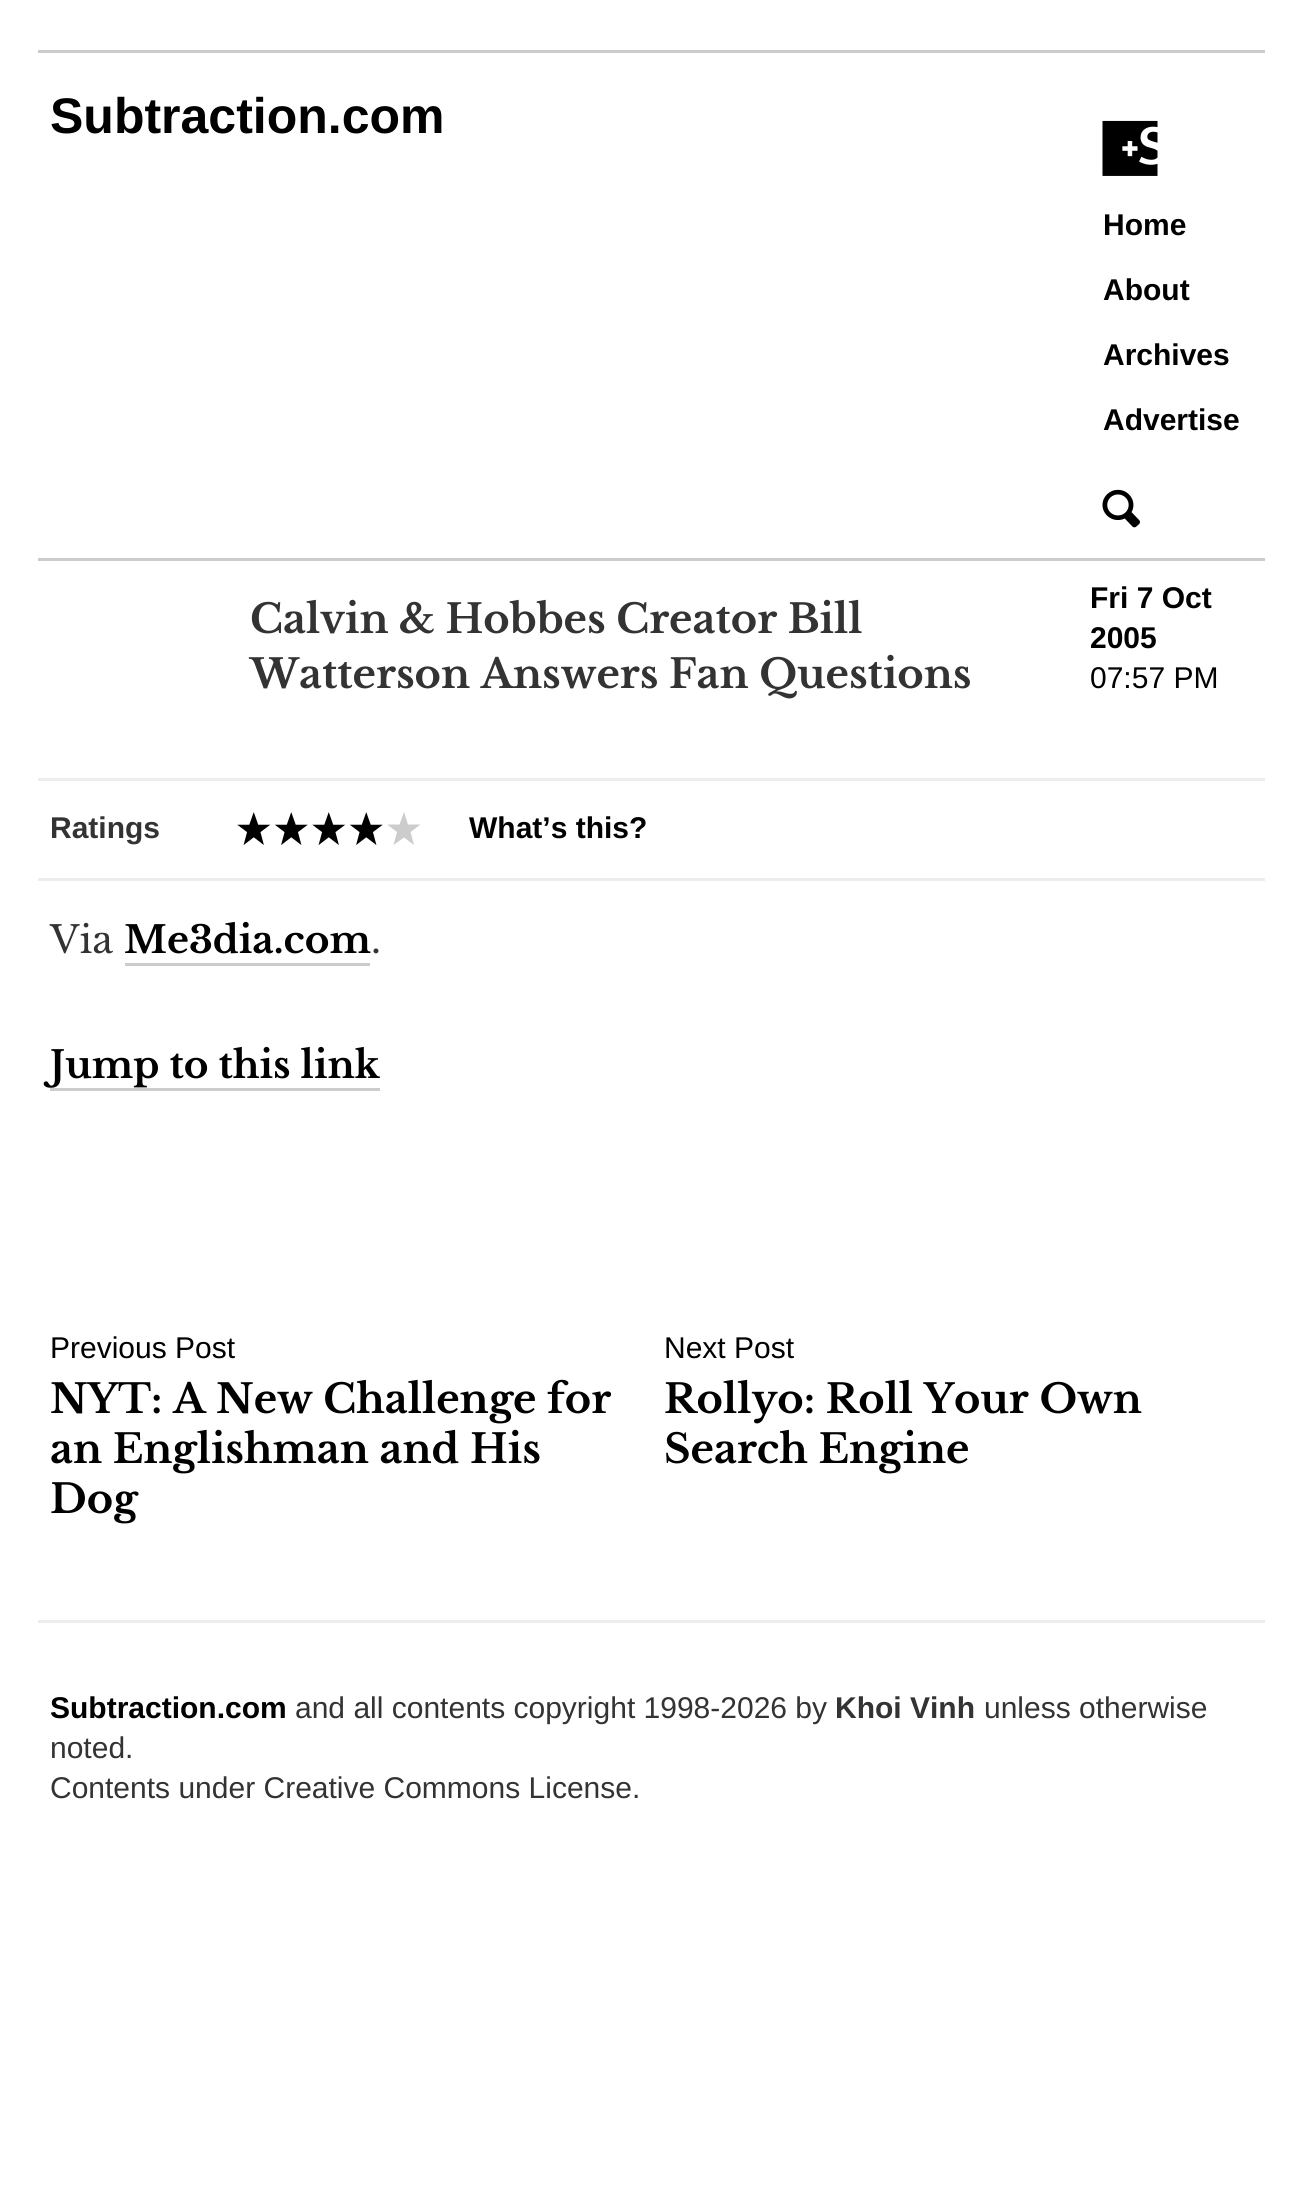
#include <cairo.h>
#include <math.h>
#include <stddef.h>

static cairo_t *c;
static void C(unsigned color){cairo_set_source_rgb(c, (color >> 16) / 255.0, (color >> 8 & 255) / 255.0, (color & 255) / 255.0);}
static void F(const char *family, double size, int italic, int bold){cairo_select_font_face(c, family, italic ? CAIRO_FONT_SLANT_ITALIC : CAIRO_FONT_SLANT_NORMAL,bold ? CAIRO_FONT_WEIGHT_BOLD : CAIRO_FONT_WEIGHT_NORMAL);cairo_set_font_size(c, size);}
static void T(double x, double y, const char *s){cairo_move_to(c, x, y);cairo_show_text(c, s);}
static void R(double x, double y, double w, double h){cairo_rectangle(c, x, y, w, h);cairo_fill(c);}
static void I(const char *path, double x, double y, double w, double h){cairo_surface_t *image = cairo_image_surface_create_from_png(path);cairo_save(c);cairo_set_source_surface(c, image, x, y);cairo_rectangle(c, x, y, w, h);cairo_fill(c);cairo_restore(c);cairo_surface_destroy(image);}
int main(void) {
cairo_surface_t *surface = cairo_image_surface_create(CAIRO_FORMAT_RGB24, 1302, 2207);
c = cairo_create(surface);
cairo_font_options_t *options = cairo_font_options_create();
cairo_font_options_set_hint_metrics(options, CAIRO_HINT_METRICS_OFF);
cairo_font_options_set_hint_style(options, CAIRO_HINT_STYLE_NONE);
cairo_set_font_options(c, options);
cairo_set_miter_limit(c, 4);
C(0xffffff);
cairo_paint(c);
C(0xcccccc);
R(38,50,1227,3);
F("Liberation Sans",50,0,1);
C(0x000000);
T(50,133,"Subtraction.com");
I("1.png",1102,489,38,39);
I("2.png",1102,120,56,56);
F("Liberation Sans",30,0,1);
T(1103,235,"Home");
T(1103,300,"About");
T(1103,365,"Archives");
T(1103,430,"Advertise");
C(0xcccccc);
R(38,558,1227,3);
C(0xededed);
R(38,778,1227,3);
F("Libre Baskerville",40,0,1);
C(0x333333);
T(250,633,"Calvin & Hobbes Creator Bill");
T(250,688,"Watterson Answers Fan Questions");
F("Liberation Sans",30,0,1);
C(0x000000);
T(1090,608,"Fri 7 Oct");
T(1090,648,"2005");
F("Liberation Sans",30,0,0);
T(1090,688,"07:57 PM");
C(0xededed);
R(38,878,1227,3);
F("Liberation Sans",30,0,1);
C(0x333333);
T(50,838,"Ratings");
I("3.png",237,812,146,33);
C(0xcccccc);
cairo_new_path(c);
cairo_move_to(c,404,812);
cairo_line_to(c,408,824.5);
cairo_line_to(c,420.5,824.5);
cairo_line_to(c,410.5,832);
cairo_line_to(c,414,845);
cairo_line_to(c,404,837.5);
cairo_line_to(c,393.5,845);
cairo_line_to(c,397,832);
cairo_line_to(c,387,824.5);
cairo_line_to(c,399.5,824.5);
cairo_close_path(c);
cairo_fill(c);
C(0x000000);
T(469,838,"What’s this?");
F("Libre Baskerville",37.5,0,0);
C(0x333333);
T(50,953,"Via");
F("Libre Baskerville",37.5,0,1);
C(0x000000);
T(124,953,"Me3dia.com");
C(0xcccccc);
R(125,963,245,3);
F("Libre Baskerville",37.5,0,0);
C(0x333333);
T(371,953,".");
F("Libre Baskerville",37.5,0,1);
C(0x000000);
T(50,1078,"Jump to this link");
C(0xcccccc);
R(50,1088,330,3);
C(0xededed);
R(38,1620,1227,3);
F("Liberation Sans",30,0,0);
C(0x000000);
T(50,1358,"Previous Post");
F("Libre Baskerville",40,0,1);
T(50,1413,"NYT: A New Challenge for");
T(50,1463,"an Englishman and His");
T(50,1513,"Dog");
F("Liberation Sans",30,0,0);
T(664,1358,"Next Post");
F("Libre Baskerville",40,0,1);
T(664,1413,"Rollyo: Roll Your Own");
T(664,1463,"Search Engine");
F("Liberation Sans",30,0,1);
T(50,1718,"Subtraction.com");
F("Liberation Sans",30,0,0);
C(0x333333);
T(295,1718,"and all contents copyright 1998-2026 by");
F("Liberation Sans",30,0,1);
T(835,1718,"Khoi Vinh");
F("Liberation Sans",30,0,0);
T(984,1718,"unless otherwise");
T(50,1758,"noted.");
T(50,1798,"Contents under Creative Commons License.");
cairo_surface_write_to_png(surface, "o.png");
cairo_font_options_destroy(options);
cairo_destroy(c);
cairo_surface_destroy(surface);
return 0;
}
